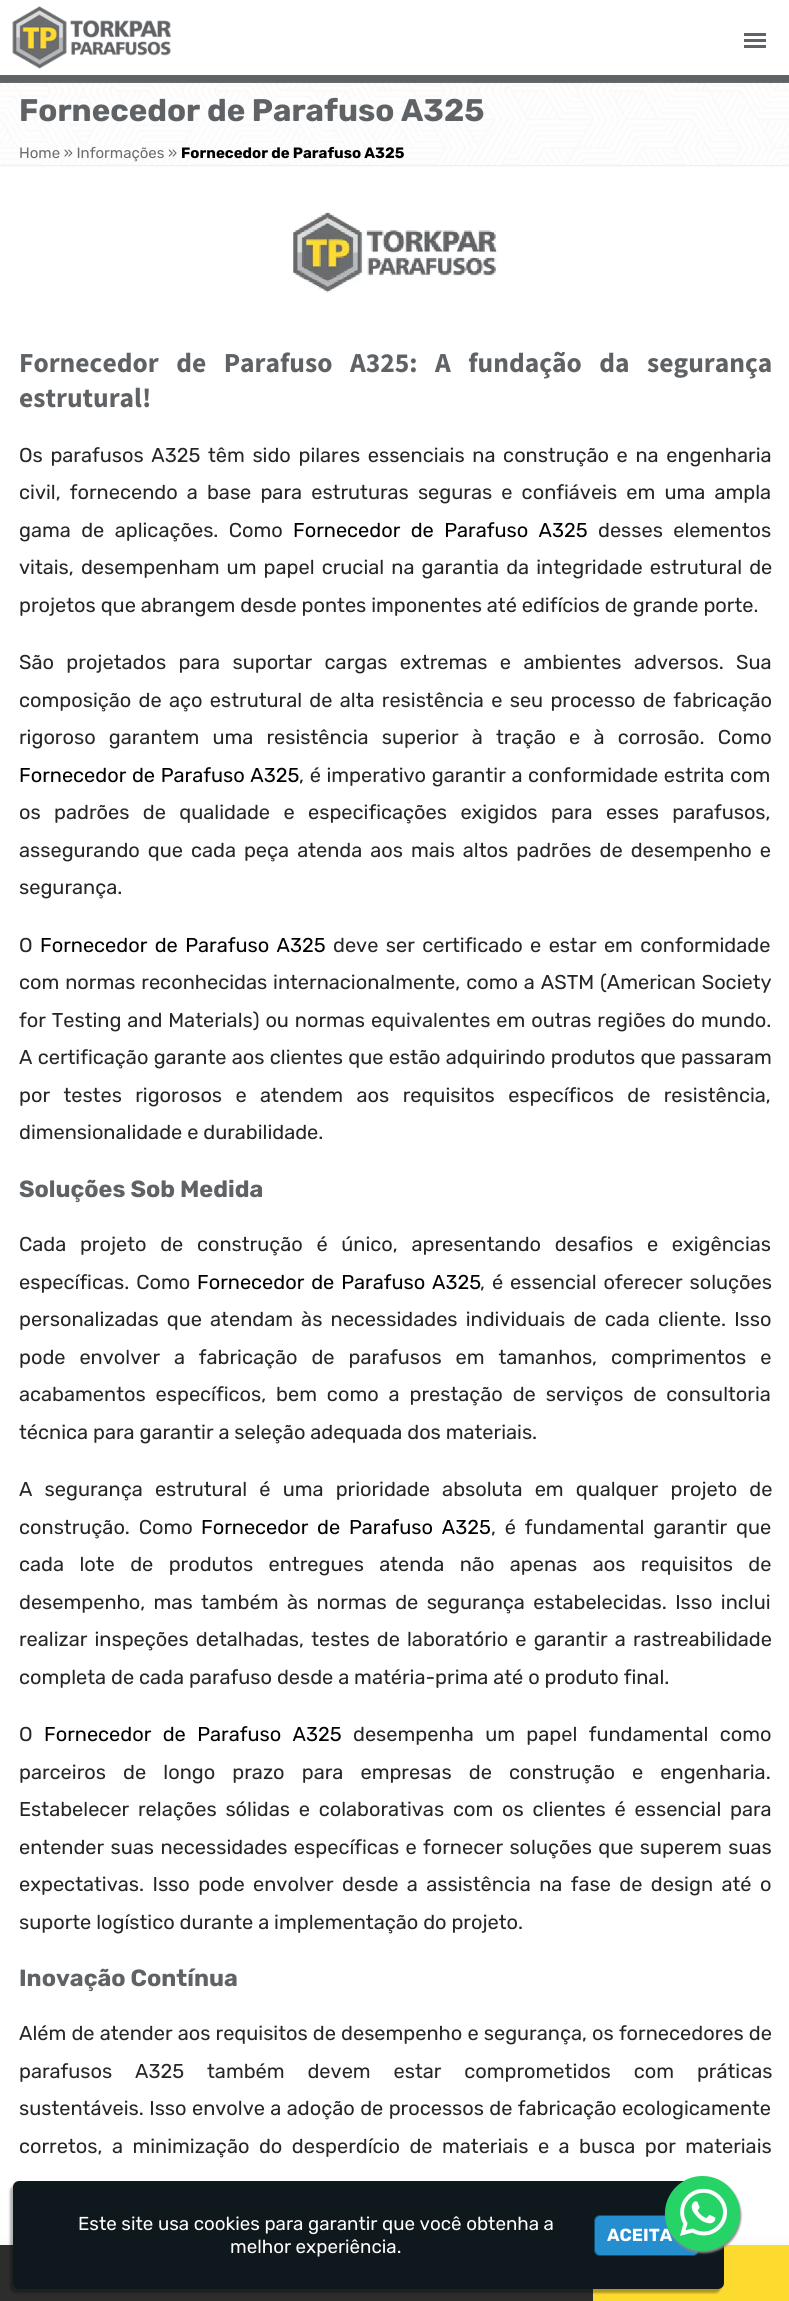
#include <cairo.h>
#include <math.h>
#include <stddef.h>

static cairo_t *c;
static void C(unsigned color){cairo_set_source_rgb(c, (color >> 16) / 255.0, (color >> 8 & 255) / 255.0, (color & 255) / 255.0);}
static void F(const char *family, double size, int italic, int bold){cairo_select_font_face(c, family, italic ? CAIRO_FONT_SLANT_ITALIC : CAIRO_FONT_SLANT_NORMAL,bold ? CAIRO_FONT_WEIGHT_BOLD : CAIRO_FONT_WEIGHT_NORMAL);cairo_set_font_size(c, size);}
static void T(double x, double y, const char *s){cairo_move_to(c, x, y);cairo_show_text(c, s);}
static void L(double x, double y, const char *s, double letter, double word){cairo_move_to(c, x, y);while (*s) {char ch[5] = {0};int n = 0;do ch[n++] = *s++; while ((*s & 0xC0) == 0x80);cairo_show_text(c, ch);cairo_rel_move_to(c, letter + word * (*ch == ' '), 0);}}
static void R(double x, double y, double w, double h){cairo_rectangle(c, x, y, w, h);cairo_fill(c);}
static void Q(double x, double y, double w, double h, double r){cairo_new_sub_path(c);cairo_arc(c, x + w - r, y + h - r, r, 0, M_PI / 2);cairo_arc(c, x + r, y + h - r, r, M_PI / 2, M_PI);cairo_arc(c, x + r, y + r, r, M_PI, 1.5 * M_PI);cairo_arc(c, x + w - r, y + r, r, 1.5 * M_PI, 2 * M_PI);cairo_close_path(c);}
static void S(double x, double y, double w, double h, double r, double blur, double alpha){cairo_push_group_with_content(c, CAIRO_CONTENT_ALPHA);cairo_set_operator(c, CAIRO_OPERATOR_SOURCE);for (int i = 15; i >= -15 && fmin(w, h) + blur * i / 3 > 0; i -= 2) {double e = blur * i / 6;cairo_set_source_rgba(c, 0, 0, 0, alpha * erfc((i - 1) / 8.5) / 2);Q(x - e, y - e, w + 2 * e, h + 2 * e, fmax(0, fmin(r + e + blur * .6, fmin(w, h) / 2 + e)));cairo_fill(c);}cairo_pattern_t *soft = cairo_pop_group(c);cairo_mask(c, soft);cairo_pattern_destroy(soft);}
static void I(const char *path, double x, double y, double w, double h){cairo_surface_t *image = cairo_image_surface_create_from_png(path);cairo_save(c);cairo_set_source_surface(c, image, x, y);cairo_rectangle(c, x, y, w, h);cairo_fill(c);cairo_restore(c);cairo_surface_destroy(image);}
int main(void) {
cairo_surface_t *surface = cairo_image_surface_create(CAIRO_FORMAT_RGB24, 789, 2301);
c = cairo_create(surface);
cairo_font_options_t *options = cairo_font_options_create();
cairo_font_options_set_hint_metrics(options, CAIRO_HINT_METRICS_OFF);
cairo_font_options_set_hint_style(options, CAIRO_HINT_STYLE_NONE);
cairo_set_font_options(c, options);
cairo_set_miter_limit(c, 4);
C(0xffffff);
cairo_paint(c);
I("1.png",12,6,160,63);
C(0x606366);
R(744,33,22,3);
R(744,39,22,3);
R(744,45,22,3);
R(0,75,789,8);
cairo_save(c);
cairo_rectangle(c,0,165,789,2);
cairo_clip(c);
C(0xeeeeee);
S(1,84,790,82,0,.5,1);
cairo_restore(c);
I("2.png",0,82,789,83);
F("Rubik",31.25,0,1);
T(19,121,"Fornecedor de Parafuso A325");
F("Rubik",15,0,0);
C(0x6d6d6d);
T(19,158,"Home » Informações »");
F("Rubik",15,0,1);
C(0x000000);
T(181,158,"Fornecedor de Parafuso A325");
I("3.png",293,211,205,82);
F("Source Sans Pro",27.5,0,1);
C(0x606366);
L(19,372,"Fornecedor de Parafuso A325: A fundação da segurança",0,12);
T(19,407,"estrutural!");
F("Rubik",20,0,0);
C(0x262626);
L(19,462,"Os parafusos A325 têm sido pilares essenciais na construção e na engenharia",0,2.75);
L(19,499,"civil, fornecendo a base para estruturas seguras e confiáveis em uma ampla",0,4.25);
L(19,537,"gama de aplicações. Como",0,5.5);
C(0x000000);
L(293,537,"Fornecedor de Parafuso A325",0,5.5);
C(0x262626);
L(598,537,"desses elementos",0,5.5);
L(19,574,"vitais, desempenham um papel crucial na garantia da integridade estrutural de",0,2.25);
T(19,612,"projetos que abrangem desde pontes imponentes até edifícios de grande porte.");
L(19,669,"São projetados para suportar cargas extremas e ambientes adversos. Sua",0,7.5);
L(19,707,"composição de aço estrutural de alta resistência e seu processo de fabricação",0,2.4);
L(19,744,"rigoroso garantem uma resistência superior à tração e à corrosão. Como",0,8.25);
C(0x000000);
L(19,782,"Fornecedor de Parafuso A325",0,.75);
C(0x262626);
L(299,782,", é imperativo garantir a conformidade estrita com",0,.75);
L(19,819,"os padrões de qualidade e especificações exigidos para esses parafusos,",0,8.5);
L(19,857,"assegurando que cada peça atenda aos mais altos padrões de desempenho e",0,3.1);
T(19,894,"segurança.");
T(19,952,"O");
C(0x000000);
L(40,952,"Fornecedor de Parafuso A325",0,2.5);
C(0x262626);
L(333,952,"deve ser certificado e estar em conformidade",0,2.5);
L(19,989,"com normas reconhecidas internacionalmente, como a ASTM (American Society",0,1);
L(19,1027,"for Testing and Materials) ou normas equivalentes em outras regiões do mundo.",0,1);
L(19,1064,"A certificação garante aos clientes que estão adquirindo produtos que passaram",0,.4);
L(19,1102,"por testes rigorosos e atendem aos requisitos específicos de resistência,",0,8.5);
T(19,1139,"dimensionalidade e durabilidade.");
F("Rubik",23.4,0,1);
C(0x606366);
T(19,1197,"Soluções Sob Medida");
F("Rubik",20,0,0);
C(0x262626);
L(19,1251,"Cada projeto de construção é único, apresentando desafios e exigências",0,8.75);
L(19,1289,"específicas. Como",0,2);
C(0x000000);
L(197,1289,"Fornecedor de Parafuso A325",0,2);
C(0x262626);
L(480,1289,", é essencial oferecer soluções",0,2);
L(19,1326,"personalizadas que atendam às necessidades individuais de cada cliente. Isso",0,3.25);
L(19,1364,"pode envolver a fabricação de parafusos em tamanhos, comprimentos e",0,9);
L(19,1401,"acabamentos específicos, bem como a prestação de serviços de consultoria",0,5);
T(19,1439,"técnica para garantir a seleção adequada dos materiais.");
L(19,1496,"A segurança estrutural é uma prioridade absoluta em qualquer projeto de",0,7.25);
L(19,1534,"construção. Como",0,3.9);
C(0x000000);
L(201,1534,"Fornecedor de Parafuso A325",0,3.9);
C(0x262626);
L(491,1534,", é fundamental garantir que",0,3.9);
L(19,1571,"cada lote de produtos entregues atenda não apenas aos requisitos de",0,10.5);
L(19,1609,"desempenho, mas também às normas de segurança estabelecidas. Isso inclui",0,3.5);
L(19,1646,"realizar inspeções detalhadas, testes de laboratório e garantir a rastreabilidade",0,2.25);
T(19,1684,"completa de cada parafuso desde a matéria-prima até o produto final.");
T(19,1741,"O");
C(0x000000);
L(44,1741,"Fornecedor de Parafuso A325",0,6.5);
C(0x262626);
L(353,1741,"desempenha um papel fundamental como",0,6.5);
L(19,1779,"parceiros de longo prazo para empresas de construção e engenharia.",0,12.25);
L(19,1816,"Estabelecer relações sólidas e colaborativas com os clientes é essencial para",0,3.9);
L(19,1854,"entender suas necessidades específicas e fornecer soluções que superem suas",0,1.5);
L(19,1891,"expectativas. Isso pode envolver desde a assistência na fase de design até o",0,3.5);
T(19,1929,"suporte logístico durante a implementação do projeto.");
F("Rubik",23.4,0,1);
C(0x606366);
T(19,1986,"Inovação Contínua");
F("Rubik",20,0,0);
C(0x262626);
L(19,2040,"Além de atender aos requisitos de desempenho e segurança, os fornecedores de",0,.25);
L(19,2078,"parafusos A325 também devem estar comprometidos com práticas",0,18);
L(19,2115,"sustentáveis. Isso envolve a adoção de processos de fabricação ecologicamente",0,.5);
L(19,2153,"corretos, a minimização do desperdício de materiais e a busca por materiais",0,4.6);
C(0x000000);
S(0,2245,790,56,0,6,.05);
C(0x2d2d2d);
R(0,2245,593,56);
C(0xfcda2e);
R(593,2245,196,56);
C(0x000000);
S(10,2185,711,108,6,1,.3);
C(0x0f181c);
Q(13,2181,711,108,6);
cairo_fill(c);
F("Rubik",18.75,0,0);
C(0xffffff);
T(78,2230,"Este site usa cookies para garantir que você obtenha a");
T(230,2253,"melhor experiência.");
C(0x248ece);
Q(594.5,2215.5,104,40,5.5);
cairo_fill_preserve(c);
C(0x114e73);
cairo_set_line_width(c,1);
cairo_stroke(c);
F("Rubik",17.5,0,1);
C(0xffffff);
T(607,2241,"ACEITA");
C(0x888888);
S(666,2178,75,75,37.5,1,1);
C(0x25d366);
cairo_arc(c,702.5,2213.5,37.5,0,2 * M_PI);
cairo_fill(c);
I("4.png",680,2188,47,48);
cairo_surface_write_to_png(surface, "o.png");
cairo_font_options_destroy(options);
cairo_destroy(c);
cairo_surface_destroy(surface);
return 0;
}
